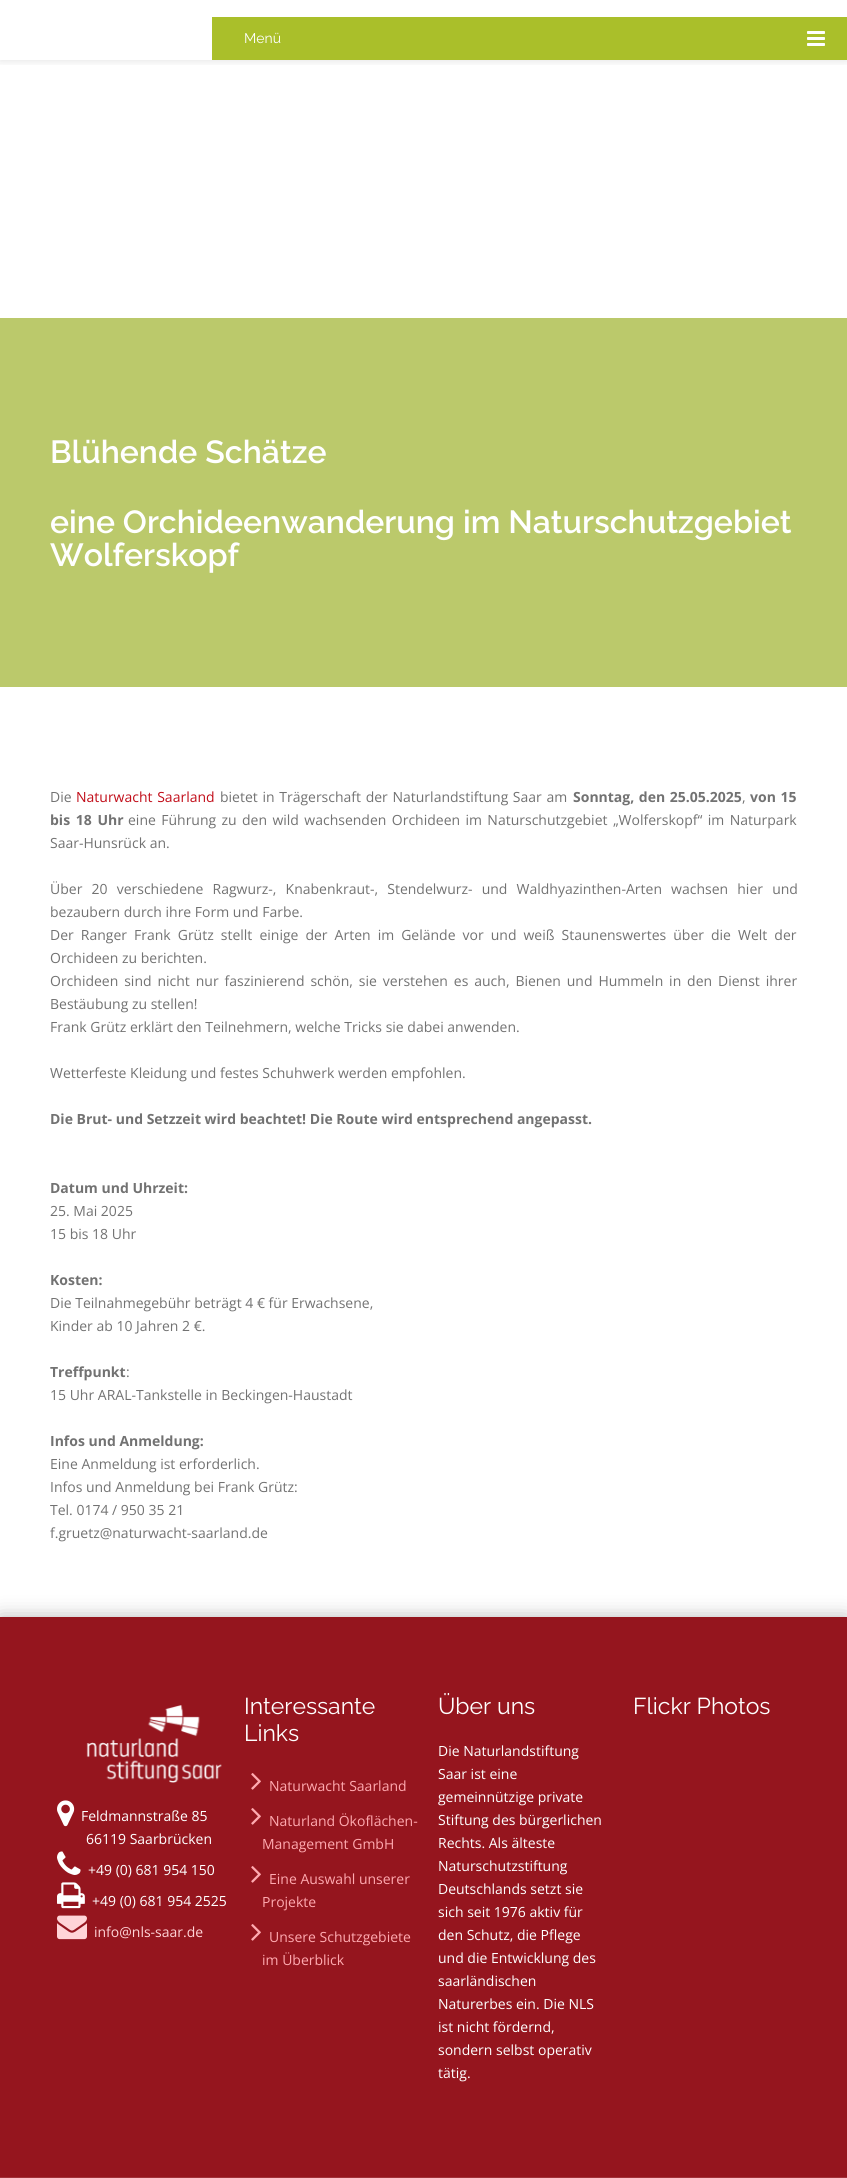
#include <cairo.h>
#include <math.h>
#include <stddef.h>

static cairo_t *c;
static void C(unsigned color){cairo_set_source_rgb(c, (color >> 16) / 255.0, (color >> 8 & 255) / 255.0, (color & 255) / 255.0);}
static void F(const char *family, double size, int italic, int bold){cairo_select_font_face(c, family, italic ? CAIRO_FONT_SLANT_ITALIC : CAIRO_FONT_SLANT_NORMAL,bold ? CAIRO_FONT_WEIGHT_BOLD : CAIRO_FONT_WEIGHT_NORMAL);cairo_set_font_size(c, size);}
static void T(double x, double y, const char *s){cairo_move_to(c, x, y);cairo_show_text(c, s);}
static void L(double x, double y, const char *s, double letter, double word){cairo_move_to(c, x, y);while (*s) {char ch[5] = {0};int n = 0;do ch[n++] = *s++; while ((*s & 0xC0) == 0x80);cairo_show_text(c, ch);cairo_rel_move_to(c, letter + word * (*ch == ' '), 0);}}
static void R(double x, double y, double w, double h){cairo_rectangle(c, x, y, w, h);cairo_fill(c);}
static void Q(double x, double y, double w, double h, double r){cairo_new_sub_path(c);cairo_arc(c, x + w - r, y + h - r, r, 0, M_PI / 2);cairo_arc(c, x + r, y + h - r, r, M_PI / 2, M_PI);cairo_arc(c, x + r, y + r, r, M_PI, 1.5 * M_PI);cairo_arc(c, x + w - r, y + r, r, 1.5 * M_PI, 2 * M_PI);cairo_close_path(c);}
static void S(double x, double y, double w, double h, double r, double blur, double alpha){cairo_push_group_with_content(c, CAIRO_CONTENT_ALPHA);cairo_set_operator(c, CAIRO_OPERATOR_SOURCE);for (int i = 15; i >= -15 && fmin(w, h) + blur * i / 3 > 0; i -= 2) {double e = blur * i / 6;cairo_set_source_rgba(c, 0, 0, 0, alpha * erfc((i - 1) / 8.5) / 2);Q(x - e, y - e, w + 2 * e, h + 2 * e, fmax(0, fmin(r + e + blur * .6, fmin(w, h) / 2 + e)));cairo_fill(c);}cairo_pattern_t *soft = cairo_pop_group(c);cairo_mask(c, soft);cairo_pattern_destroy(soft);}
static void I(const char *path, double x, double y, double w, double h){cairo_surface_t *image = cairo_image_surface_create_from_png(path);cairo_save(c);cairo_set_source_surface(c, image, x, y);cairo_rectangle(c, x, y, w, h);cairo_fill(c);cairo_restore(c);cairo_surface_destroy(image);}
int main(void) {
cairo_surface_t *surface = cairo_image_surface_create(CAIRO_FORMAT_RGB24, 847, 2178);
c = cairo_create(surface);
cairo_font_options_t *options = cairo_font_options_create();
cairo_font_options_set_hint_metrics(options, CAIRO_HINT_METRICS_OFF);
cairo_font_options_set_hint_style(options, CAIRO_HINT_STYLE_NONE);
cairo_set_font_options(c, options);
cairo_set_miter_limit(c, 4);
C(0xffffff);
cairo_paint(c);
cairo_save(c);
cairo_rectangle(c,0,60,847,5);
cairo_clip(c);
C(0x000000);
S(0,-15,847,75,0,5,.13);
cairo_restore(c);
C(0xaabf2a);
R(212,17,635,43);
F("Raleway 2 Thin",14,0,0);
C(0xffffff);
T(244,43,"Menü");
I("1.png",807,31,18,15);
C(0xbbc96b);
R(0,318,847,369);
F("Raleway Thin",32,0,0);
C(0xffffff);
T(50,463,"Blühende Schätze");
T(50,533,"eine Orchideenwanderung im Naturschutzgebiet");
T(50,566,"Wolferskopf");
F("Open Sans",14,0,0);
C(0x727272);
T(50,802,"Die");
C(0xc10c18);
L(76,802,"Naturwacht Saarland",0,1);
C(0x727272);
L(220,802,"bietet in Trägerschaft der Naturlandstiftung Saar am",0,1);
F("Open Sans",14,0,1);
L(573,802,"Sonntag, den 25.05.2025",0,1);
F("Open Sans",14,0,0);
T(742,802,",");
F("Open Sans",14,0,1);
L(750,802,"von 15",0,1);
L(50,825,"bis 18 Uhr",0,2);
F("Open Sans",14,0,0);
L(128,825,"eine Führung zu den wild wachsenden Orchideen im Naturschutzgebiet „Wolferskopf“ im Naturpark",0,1.75);
T(50,848,"Saar-Hunsrück an.");
L(50,894,"Über 20 verschiedene Ragwurz-, Knabenkraut-, Stendelwurz- und Waldhyazinthen-Arten wachsen hier und",0,5.5);
T(50,917,"bezaubern durch ihre Form und Farbe.");
L(50,940,"Der Ranger Frank Grütz stellt einige der Arten im Gelände vor und weiß Staunenswertes über die Welt der",0,3.4);
T(50,963,"Orchideen zu berichten.");
L(50,986,"Orchideen sind nicht nur faszinierend schön, sie verstehen es auch, Bienen und Hummeln in den Dienst ihrer",0,2.25);
T(50,1009,"Bestäubung zu stellen!");
T(50,1032,"Frank Grütz erklärt den Teilnehmern, welche Tricks sie dabei anwenden.");
T(50,1078,"Wetterfeste Kleidung und festes Schuhwerk werden empfohlen.");
F("Open Sans",14,0,1);
T(50,1124,"Die Brut- und Setzzeit wird beachtet! Die Route wird entsprechend angepasst.");
T(50,1193,"Datum und Uhrzeit:");
F("Open Sans",14,0,0);
T(50,1216,"25. Mai 2025");
T(50,1239,"15 bis 18 Uhr");
F("Open Sans",14,0,1);
T(50,1285,"Kosten:");
F("Open Sans",14,0,0);
T(50,1308,"Die Teilnahmegebühr beträgt 4 € für Erwachsene,");
T(50,1331,"Kinder ab 10 Jahren 2 €.");
F("Open Sans",14,0,1);
T(50,1377,"Treffpunkt");
F("Open Sans",14,0,0);
T(126,1377,":");
T(50,1400,"15 Uhr ARAL-Tankstelle in Beckingen-Haustadt");
F("Open Sans",14,0,1);
T(50,1446,"Infos und Anmeldung:");
F("Open Sans",14,0,0);
T(50,1469,"Eine Anmeldung ist erforderlich.");
T(50,1492,"Infos und Anmeldung bei Frank Grütz:");
T(50,1515,"Tel. 0174 / 950 35 21");
T(50,1538,"f.gruetz@naturwacht-saarland.de");
C(0x000000);
S(0,1617,847,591,0,10,.27);
C(0x95151e);
R(0,1617,847,560);
F("Raleway 2 Thin",23,0,0);
C(0xffffff);
T(244,1714,"Interessante");
T(244,1741,"Links");
I("2.png",251,1773,10,17);
F("Open Sans",14,0,0);
C(0xffaab0);
T(269,1791,"Naturwacht Saarland");
I("2.png",251,1808,10,17);
T(269,1826,"Naturland Ökoflächen-");
T(262,1849,"Management GmbH");
I("2.png",251,1866,10,17);
T(269,1884,"Eine Auswahl unserer");
T(262,1907,"Projekte");
I("2.png",251,1924,10,17);
T(269,1942,"Unsere Schutzgebiete");
T(262,1965,"im Überblick");
F("Raleway 2 Thin",23,0,0);
C(0xffffff);
T(438,1714,"Über uns");
F("Open Sans",14,0,0);
T(438,1756,"Die Naturlandstiftung");
T(438,1779,"Saar ist eine");
T(438,1802,"gemeinnützige private");
T(438,1825,"Stiftung des bürgerlichen");
T(438,1848,"Rechts. Als älteste");
T(438,1871,"Naturschutzstiftung");
T(438,1894,"Deutschlands setzt sie");
T(438,1917,"sich seit 1976 aktiv für");
T(438,1940,"den Schutz, die Pflege");
T(438,1963,"und die Entwicklung des");
T(438,1986,"saarländischen");
T(438,2009,"Naturerbes ein. Die NLS");
T(438,2032,"ist nicht fördernd,");
T(438,2055,"sondern selbst operativ");
T(438,2078,"tätig.");
F("Raleway 2 Thin",23,0,0);
T(633,1714,"Flickr Photos");
I("3.png",86,1705,136,78);
I("4.png",57,1800,18,27);
F("Open Sans",14,0,0);
T(81,1821,"Feldmannstraße 85");
T(86,1844,"66119 Saarbrücken");
I("5.png",57,1851,24,24);
T(88,1875,"+49 (0) 681 954 150");
I("6.png",57,1882,28,27);
T(92,1906,"+49 (0) 681 954 2525");
I("7.png",57,1915,30,25);
C(0xffd4d7);
T(94,1937,"info@nls-saar.de");
C(0xa23139);
R(0,2177,847,1);
cairo_surface_write_to_png(surface, "o.png");
cairo_font_options_destroy(options);
cairo_destroy(c);
cairo_surface_destroy(surface);
return 0;
}
